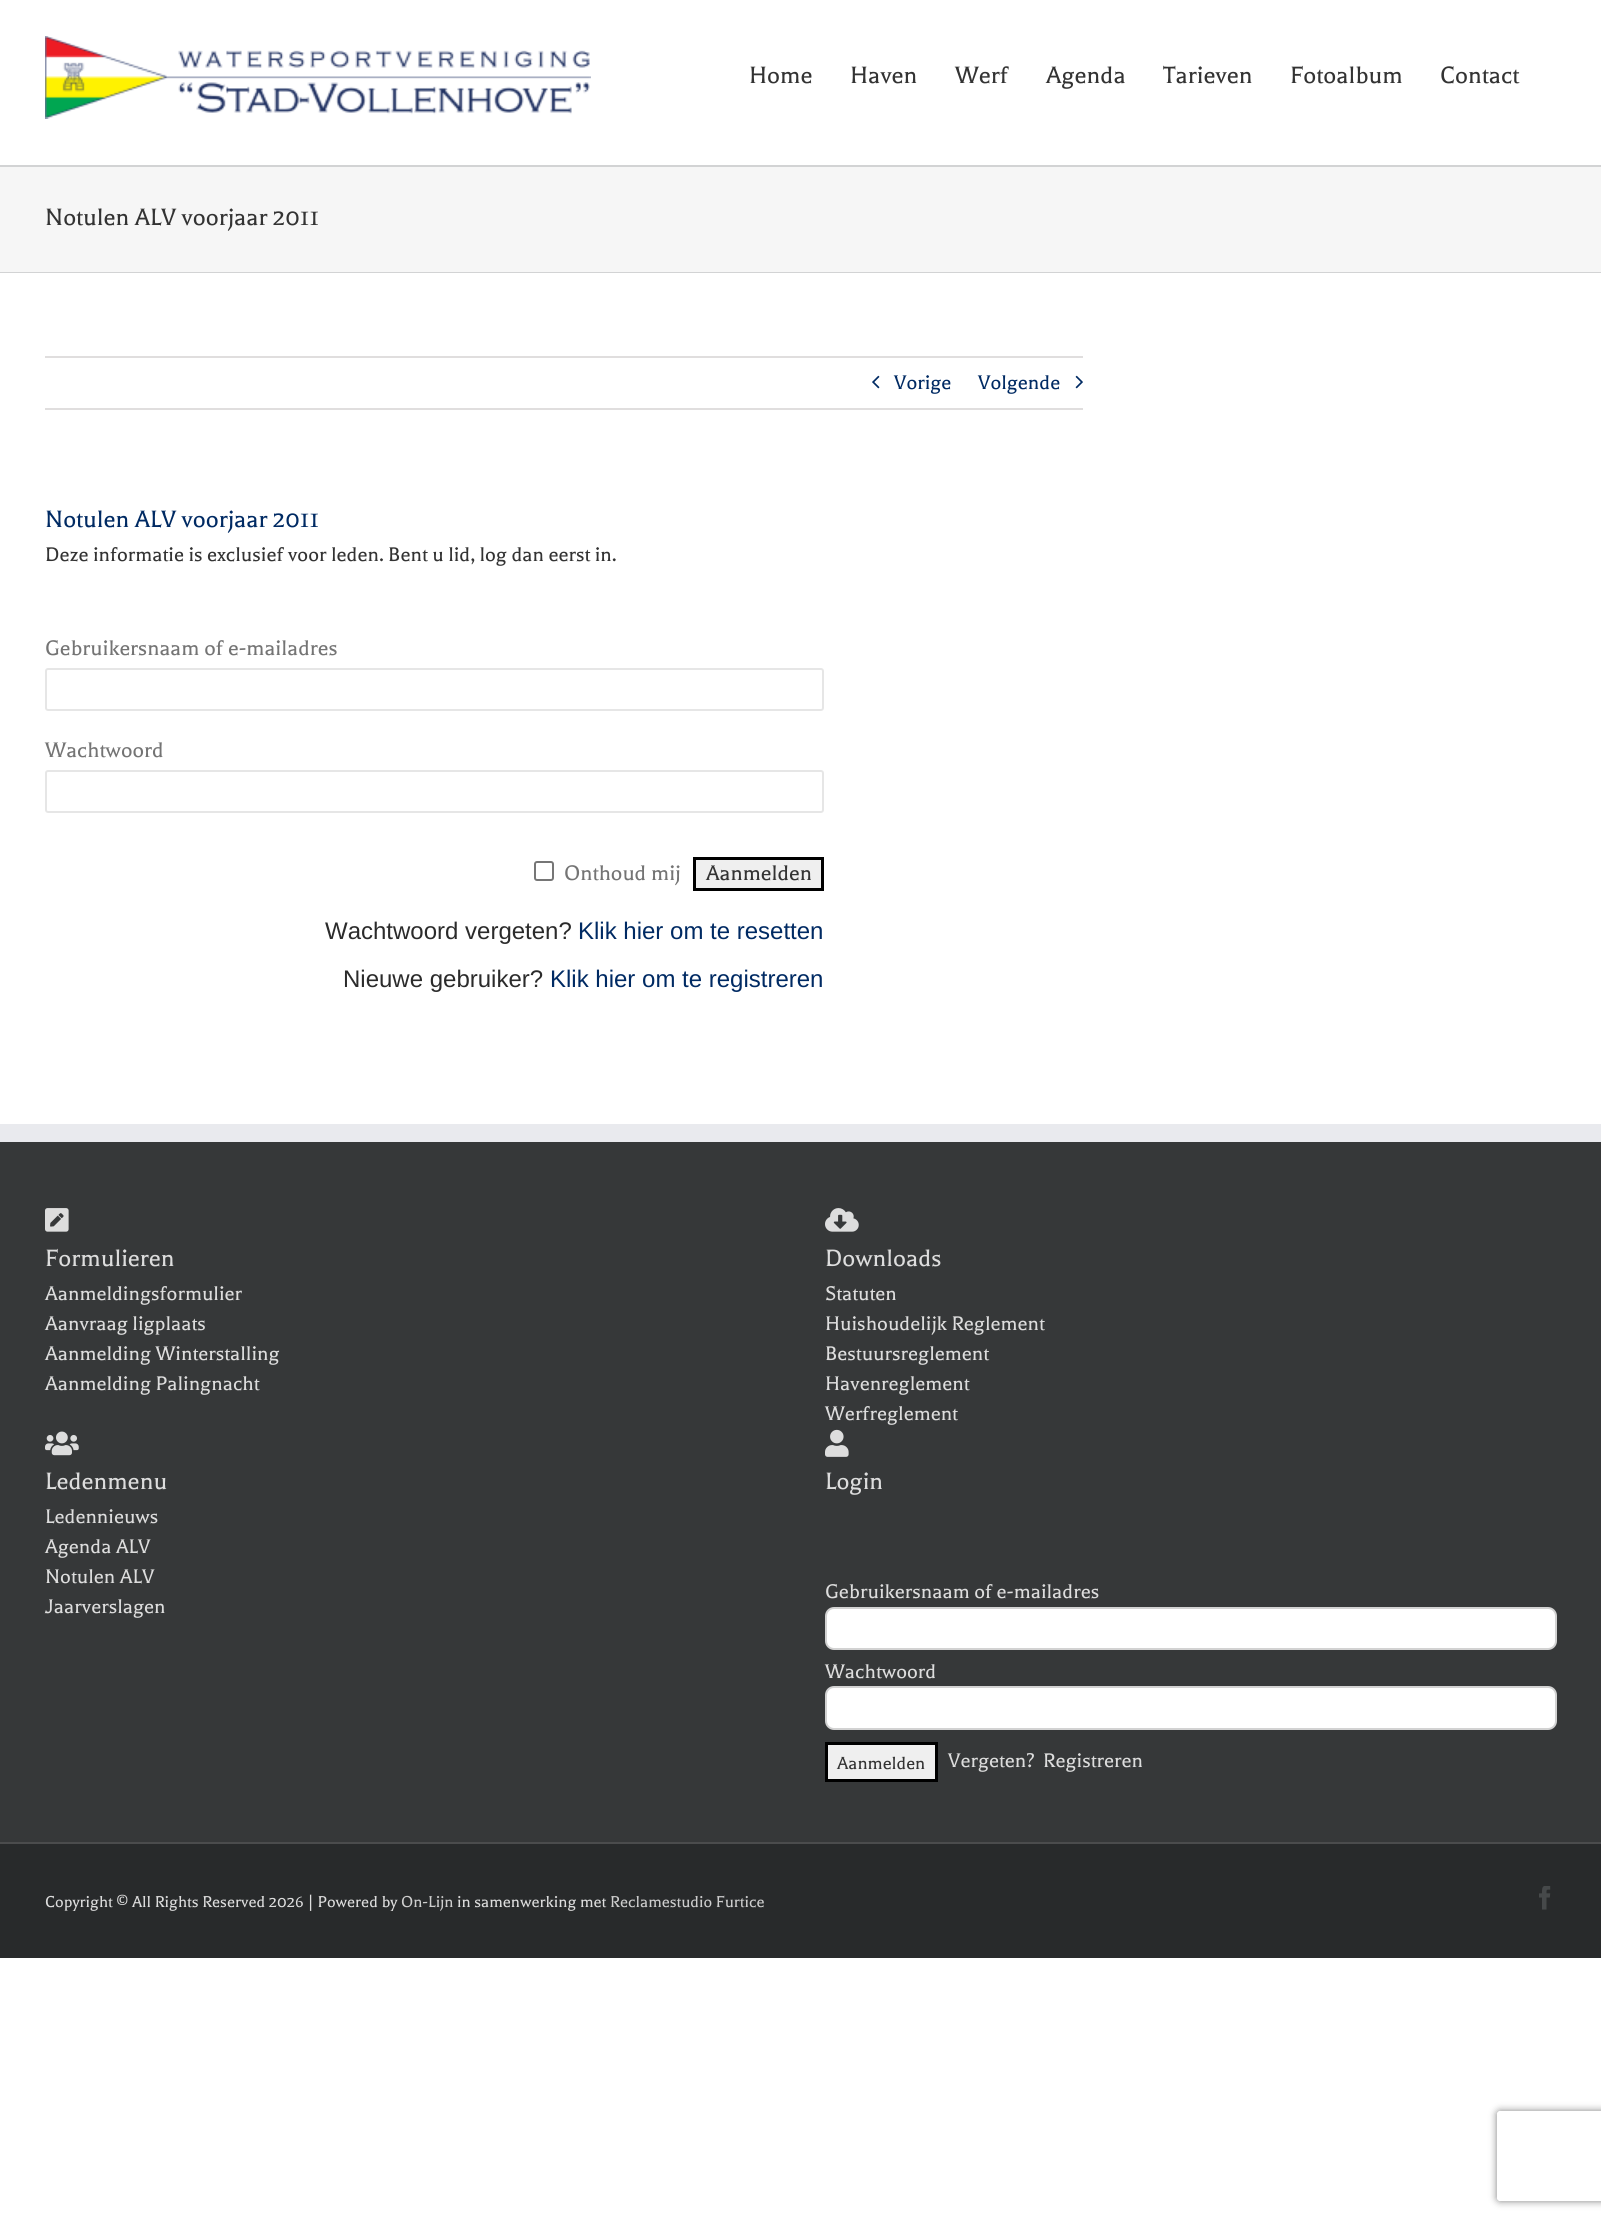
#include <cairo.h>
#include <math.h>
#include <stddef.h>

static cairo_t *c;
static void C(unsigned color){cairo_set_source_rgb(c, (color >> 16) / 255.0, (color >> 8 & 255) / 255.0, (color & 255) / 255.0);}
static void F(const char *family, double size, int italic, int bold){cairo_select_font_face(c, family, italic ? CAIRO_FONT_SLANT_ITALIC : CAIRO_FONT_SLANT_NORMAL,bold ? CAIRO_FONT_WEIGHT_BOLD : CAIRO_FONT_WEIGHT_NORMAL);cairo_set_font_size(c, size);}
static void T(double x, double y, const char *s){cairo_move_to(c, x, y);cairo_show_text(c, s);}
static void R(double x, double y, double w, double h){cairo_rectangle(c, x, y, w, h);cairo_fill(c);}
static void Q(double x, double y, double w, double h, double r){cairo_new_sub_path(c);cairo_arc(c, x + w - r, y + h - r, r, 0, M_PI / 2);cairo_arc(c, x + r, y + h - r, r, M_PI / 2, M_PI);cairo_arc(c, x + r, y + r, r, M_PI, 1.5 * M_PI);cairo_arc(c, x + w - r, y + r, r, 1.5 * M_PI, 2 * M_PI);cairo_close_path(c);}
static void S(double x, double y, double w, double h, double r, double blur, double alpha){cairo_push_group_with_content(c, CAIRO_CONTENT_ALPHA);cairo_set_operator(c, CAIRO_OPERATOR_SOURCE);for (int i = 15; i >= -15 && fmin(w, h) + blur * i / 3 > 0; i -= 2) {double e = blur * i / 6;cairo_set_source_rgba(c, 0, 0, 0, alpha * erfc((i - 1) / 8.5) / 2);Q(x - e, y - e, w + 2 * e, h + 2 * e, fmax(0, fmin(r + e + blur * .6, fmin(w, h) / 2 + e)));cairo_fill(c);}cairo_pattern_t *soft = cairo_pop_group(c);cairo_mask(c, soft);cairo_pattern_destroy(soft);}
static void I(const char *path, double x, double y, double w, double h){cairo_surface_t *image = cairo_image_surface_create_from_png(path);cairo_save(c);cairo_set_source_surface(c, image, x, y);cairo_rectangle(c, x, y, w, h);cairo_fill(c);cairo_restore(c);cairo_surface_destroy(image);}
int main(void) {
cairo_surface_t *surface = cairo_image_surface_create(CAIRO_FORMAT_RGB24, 1601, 2221);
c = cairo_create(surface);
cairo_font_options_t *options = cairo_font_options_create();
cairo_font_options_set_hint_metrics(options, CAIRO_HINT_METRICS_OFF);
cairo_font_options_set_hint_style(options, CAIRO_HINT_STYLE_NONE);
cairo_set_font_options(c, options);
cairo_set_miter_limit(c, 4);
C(0xffffff);
cairo_paint(c);
I("1.png",45,36,546,83);
F("Balthazar",27,0,0);
C(0x333333);
T(749,83,"Home");
T(850,83,"Haven");
T(955,83,"Werf");
T(1046,83,"Agenda");
T(1163,83,"Tarieven");
T(1290,83,"Fotoalbum");
T(1440,83,"Contact");
C(0xf6f6f6);
R(0,167,1601,105);
C(0xd2d3d4);
R(0,165,1601,2);
R(0,272,1601,1);
C(0x333333);
T(45,225,"Notulen ALV voorjaar 2011");
C(0xe0dede);
R(45,356,1038,2);
R(45,408,1038,2);
I("2.png",872,375,8,14);
F("Balthazar",22.5,0,0);
C(0x002a63);
T(894,389,"Vorige");
T(978,389,"Volgende");
I("3.png",1075,375,8,14);
F("Balthazar",27,0,0);
T(45,527,"Notulen ALV voorjaar 2011");
F("Balthazar",22.5,0,0);
C(0x333333);
T(45,561,"Deze informatie is exclusief voor leden. Bent u lid, log dan eerst in.");
F("Balthazar",24,0,0);
C(0x747474);
T(45,655,"Gebruikersnaam of e-mailadres");
Q(46,669,777,41,2);
C(0xe6e6e6);
cairo_stroke(c);
C(0x747474);
T(45,757,"Wachtwoord");
Q(46,771,777,41,2);
C(0xe6e6e6);
cairo_stroke(c);
Q(535,862,18,18,2);
C(0x767676);
cairo_stroke(c);
C(0x747474);
T(564,880,"Onthoud mij");
C(0xefefef);
cairo_rectangle(c,694.5,858.5,128,31);
cairo_fill_preserve(c);
C(0x000000);
cairo_set_line_width(c,3);
cairo_stroke(c);
C(0x333333);
T(706,880,"Aanmelden");
F("Liberation Sans",24,0,0);
C(0x2b2b2b);
T(325,939,"Wachtwoord vergeten?");
C(0x002a63);
T(578,939,"Klik hier om te resetten");
C(0x2b2b2b);
T(343,987,"Nieuwe gebruiker?");
C(0x002a63);
T(550,987,"Klik hier om te registreren");
C(0x363839);
R(0,1142,1601,700);
C(0xe9eaee);
R(0,1124,1601,18);
I("4.png",45,1208,24,24);
F("Balthazar",27,0,0);
C(0xdddddd);
T(45,1266,"Formulieren");
F("Balthazar",22.5,0,0);
T(45,1300,"Aanmeldingsformulier");
T(45,1330,"Aanvraag ligplaats");
T(45,1360,"Aanmelding Winterstalling");
T(45,1390,"Aanmelding Palingnacht");
I("5.png",825,1208,34,24);
F("Balthazar",27,0,0);
T(825,1266,"Downloads");
F("Balthazar",22.5,0,0);
T(825,1300,"Statuten");
T(825,1330,"Huishoudelijk Reglement");
T(825,1360,"Bestuursreglement");
T(825,1390,"Havenreglement");
T(825,1420,"Werfreglement");
I("6.png",45,1431,34,25);
F("Balthazar",27,0,0);
T(45,1489,"Ledenmenu");
F("Balthazar",22.5,0,0);
T(45,1523,"Ledennieuws");
T(45,1553,"Agenda ALV");
T(45,1583,"Notulen ALV");
T(45,1613,"Jaarverslagen");
I("7.png",825,1429,24,28);
F("Balthazar",27,0,0);
T(825,1489,"Login");
F("Balthazar",22.5,0,0);
T(825,1598,"Gebruikersnaam of e-mailadres");
C(0xffffff);
Q(826,1608,730,41,8);
cairo_fill_preserve(c);
C(0xd2d2d2);
cairo_set_line_width(c,2);
cairo_stroke(c);
C(0xdddddd);
T(825,1678,"Wachtwoord");
C(0xffffff);
Q(826,1687,730,42,8);
cairo_fill_preserve(c);
C(0xd2d2d2);
cairo_stroke(c);
C(0xefefef);
cairo_rectangle(c,826.5,1743.5,110,37);
cairo_fill_preserve(c);
C(0x000000);
cairo_set_line_width(c,3);
cairo_stroke(c);
F("Balthazar",20,0,0);
C(0x333333);
T(837,1769,"Aanmelden");
F("Balthazar",22.5,0,0);
C(0xdddddd);
T(948,1767,"Vergeten?");
T(1043,1767,"Registreren");
C(0x282a2b);
R(0,1844,1601,114);
C(0x4b4c4d);
R(0,1842,1601,2);
F("Balthazar",18,0,0);
C(0xdddddd);
T(45,1907,"Copyright © All Rights Reserved 2026 | Powered by");
C(0xcecece);
T(401,1907,"On-Lijn");
C(0xdddddd);
T(457,1907,"in samenwerking met");
C(0xcecece);
T(610,1907,"Reclamestudio Furtice");
I("8.png",1539,1886,12,24);
cairo_save(c);
cairo_set_fill_rule(c,CAIRO_FILL_RULE_EVEN_ODD);
cairo_new_path(c);
cairo_move_to(c,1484,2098);
cairo_line_to(c,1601,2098);
cairo_line_to(c,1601,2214);
cairo_line_to(c,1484,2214);
cairo_close_path(c);
cairo_move_to(c,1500,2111);
cairo_line_to(c,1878,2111);
cairo_curve_to(c,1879.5,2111,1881,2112.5,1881,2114);
cairo_line_to(c,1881,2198);
cairo_curve_to(c,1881,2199.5,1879.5,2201,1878,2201);
cairo_line_to(c,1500,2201);
cairo_curve_to(c,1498.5,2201,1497,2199.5,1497,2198);
cairo_line_to(c,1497,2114);
cairo_curve_to(c,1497,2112.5,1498.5,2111,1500,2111);
cairo_close_path(c);
cairo_clip(c);
C(0x808080);
S(1497,2111,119,90,3,4,1);
cairo_restore(c);
cairo_surface_write_to_png(surface, "o.png");
cairo_font_options_destroy(options);
cairo_destroy(c);
cairo_surface_destroy(surface);
return 0;
}
